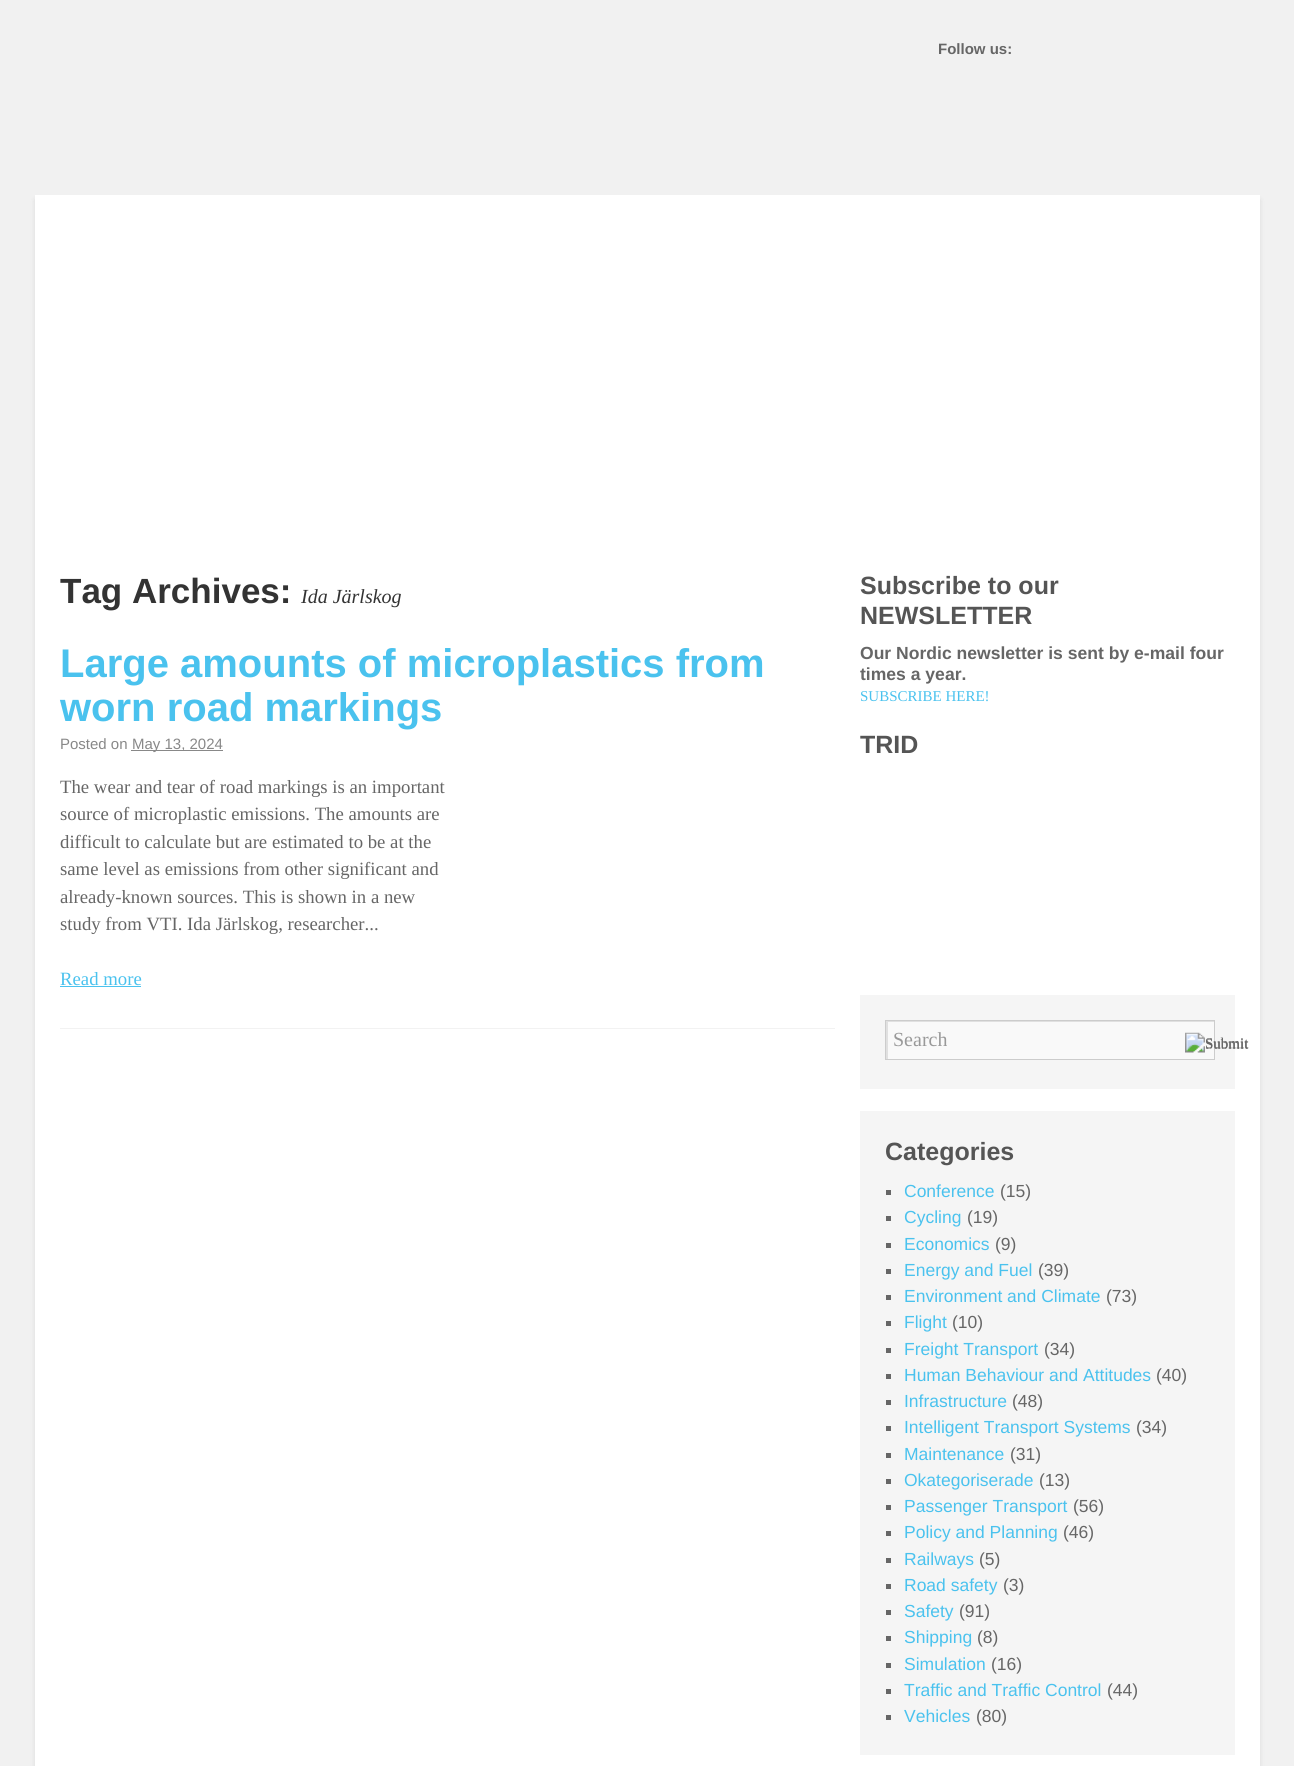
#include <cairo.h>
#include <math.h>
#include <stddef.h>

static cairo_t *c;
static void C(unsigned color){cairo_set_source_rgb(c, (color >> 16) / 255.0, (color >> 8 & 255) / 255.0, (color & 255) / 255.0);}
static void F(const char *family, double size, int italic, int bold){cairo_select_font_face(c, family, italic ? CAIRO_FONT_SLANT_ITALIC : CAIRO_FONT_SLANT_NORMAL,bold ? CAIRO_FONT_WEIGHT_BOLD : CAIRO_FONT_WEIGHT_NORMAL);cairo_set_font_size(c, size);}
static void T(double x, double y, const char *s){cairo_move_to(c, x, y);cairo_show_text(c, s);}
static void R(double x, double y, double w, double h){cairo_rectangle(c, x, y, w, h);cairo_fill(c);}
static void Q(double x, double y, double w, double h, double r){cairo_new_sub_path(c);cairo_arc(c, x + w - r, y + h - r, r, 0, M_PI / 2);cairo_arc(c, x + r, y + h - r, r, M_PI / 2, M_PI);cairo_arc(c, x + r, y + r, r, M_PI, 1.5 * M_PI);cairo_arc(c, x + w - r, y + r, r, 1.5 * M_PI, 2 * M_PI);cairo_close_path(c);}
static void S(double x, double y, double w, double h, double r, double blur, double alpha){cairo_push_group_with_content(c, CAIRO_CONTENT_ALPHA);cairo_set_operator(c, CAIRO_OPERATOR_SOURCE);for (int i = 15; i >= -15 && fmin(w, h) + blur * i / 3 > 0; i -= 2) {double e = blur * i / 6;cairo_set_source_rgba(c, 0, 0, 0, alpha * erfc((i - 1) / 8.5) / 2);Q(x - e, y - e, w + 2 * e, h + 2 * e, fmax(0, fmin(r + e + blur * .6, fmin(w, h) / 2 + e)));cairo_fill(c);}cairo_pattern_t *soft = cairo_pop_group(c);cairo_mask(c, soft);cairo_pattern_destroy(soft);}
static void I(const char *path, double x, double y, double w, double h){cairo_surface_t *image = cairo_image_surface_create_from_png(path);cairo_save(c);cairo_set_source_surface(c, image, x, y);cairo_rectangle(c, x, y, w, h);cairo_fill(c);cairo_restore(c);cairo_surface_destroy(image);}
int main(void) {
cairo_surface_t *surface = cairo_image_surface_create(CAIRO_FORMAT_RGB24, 1294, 1766);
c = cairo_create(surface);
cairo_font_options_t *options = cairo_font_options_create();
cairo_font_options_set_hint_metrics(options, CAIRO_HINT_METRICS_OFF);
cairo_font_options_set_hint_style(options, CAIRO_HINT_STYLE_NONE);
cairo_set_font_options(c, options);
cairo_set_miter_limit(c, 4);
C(0xf1f1f1);
cairo_paint(c);
F("Liberation Sans",15,0,1);
C(0x666666);
T(938,54,"Follow us:");
C(0x000000);
S(35,200,1225,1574,0,2.5,.1);
C(0xffffff);
R(35,195,1225,1571);
F("Liberation Sans",35,0,1);
C(0x333333);
T(60,603,"Tag Archives:");
F("Liberation Serif",20,1,0);
T(301,603,"Ida Järlskog");
C(0xf2f2f2);
R(60,1028,775,1);
F("Liberation Sans",40,0,1);
C(0x4ac2ee);
T(60,677,"Large amounts of microplastics from");
T(60,721,"worn road markings");
F("Liberation Sans",15,0,0);
C(0x888888);
T(60,749,"Posted on");
R(131,750,92,1);
T(132,749,"May 13, 2024");
F("Liberation Serif",18.75,0,0);
C(0x666666);
T(60,793,"The wear and tear of road markings is an important");
T(60,820,"source of microplastic emissions. The amounts are");
T(60,848,"difficult to calculate but are estimated to be at the");
T(60,875,"same level as emissions from other significant and");
T(60,903,"already-known sources. This is shown in a new");
T(60,930,"study from VTI. Ida Järlskog, researcher...");
C(0x4ac2ee);
T(60,985,"Read more");
R(60,986,81,1);
F("Liberation Sans",25,0,1);
C(0x555555);
T(860,594,"Subscribe to our");
T(860,624,"NEWSLETTER");
F("Liberation Sans",17.55,0,1);
C(0x666666);
T(860,659,"Our Nordic newsletter is sent by e-mail four");
T(860,680,"times a year.");
F("Liberation Serif",15,0,0);
C(0x4ac2ee);
T(860,701,"SUBSCRIBE HERE!");
F("Liberation Sans",25,0,1);
C(0x555555);
T(860,753,"TRID");
C(0xf5f5f5);
R(860,995,375,94);
C(0xf9f9f9);
R(888,1022,326,37);
cairo_save(c);
cairo_rectangle(c,886,1021,328,38);
cairo_clip(c);
C(0xe0e0e0);
cairo_set_fill_rule(c,CAIRO_FILL_RULE_EVEN_ODD);
cairo_new_path(c);
cairo_move_to(c,762,898);
cairo_line_to(c,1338,898);
cairo_line_to(c,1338,1182);
cairo_line_to(c,762,1182);
cairo_close_path(c);
cairo_move_to(c,888,1022);
cairo_line_to(c,1215,1022);
cairo_line_to(c,1215,1060);
cairo_line_to(c,888,1060);
cairo_close_path(c);
cairo_fill(c);
cairo_restore(c);
cairo_rectangle(c,885.5,1020.5,329,39);
C(0xcccccc);
cairo_set_line_width(c,1);
cairo_stroke(c);
F("Liberation Serif",20,0,0);
C(0x999999);
T(893,1046,"Search");
I("1.png",1185,1032,64,21);
F("Liberation Serif",15,0,0);
C(0x666666);
T(1205,1048,"Submit");
C(0xf5f5f5);
R(860,1111,375,644);
F("Liberation Sans",25,0,1);
C(0x555555);
T(885,1160,"Categories");
C(0x666666);
R(886,1190,5,5);
F("Liberation Sans",17.5,0,0);
C(0x4ac2ee);
T(904,1197,"Conference");
C(0x666666);
T(1000,1197,"(15)");
R(886,1216,5,5);
C(0x4ac2ee);
T(904,1223,"Cycling");
C(0x666666);
T(967,1223,"(19)");
R(886,1243,5,5);
C(0x4ac2ee);
T(904,1250,"Economics");
C(0x666666);
T(995,1250,"(9)");
R(886,1269,5,5);
C(0x4ac2ee);
T(904,1276,"Energy and Fuel");
C(0x666666);
T(1038,1276,"(39)");
R(886,1295,5,5);
C(0x4ac2ee);
T(904,1302,"Environment and Climate");
C(0x666666);
T(1106,1302,"(73)");
R(886,1321,5,5);
C(0x4ac2ee);
T(904,1328,"Flight");
C(0x666666);
T(952,1328,"(10)");
R(886,1348,5,5);
C(0x4ac2ee);
T(904,1355,"Freight Transport");
C(0x666666);
T(1044,1355,"(34)");
R(886,1374,5,5);
C(0x4ac2ee);
T(904,1381,"Human Behaviour and Attitudes");
C(0x666666);
T(1156,1381,"(40)");
R(886,1400,5,5);
C(0x4ac2ee);
T(904,1407,"Infrastructure");
C(0x666666);
T(1012,1407,"(48)");
R(886,1426,5,5);
C(0x4ac2ee);
T(904,1433,"Intelligent Transport Systems");
C(0x666666);
T(1136,1433,"(34)");
R(886,1453,5,5);
C(0x4ac2ee);
T(904,1460,"Maintenance");
C(0x666666);
T(1010,1460,"(31)");
R(886,1479,5,5);
C(0x4ac2ee);
T(904,1486,"Okategoriserade");
C(0x666666);
T(1039,1486,"(13)");
R(886,1505,5,5);
C(0x4ac2ee);
T(904,1512,"Passenger Transport");
C(0x666666);
T(1073,1512,"(56)");
R(886,1531,5,5);
C(0x4ac2ee);
T(904,1538,"Policy and Planning");
C(0x666666);
T(1063,1538,"(46)");
R(886,1558,5,5);
C(0x4ac2ee);
T(904,1565,"Railways");
C(0x666666);
T(979,1565,"(5)");
R(886,1584,5,5);
C(0x4ac2ee);
T(904,1591,"Road safety");
C(0x666666);
T(1003,1591,"(3)");
R(886,1610,5,5);
C(0x4ac2ee);
T(904,1617,"Safety");
C(0x666666);
T(959,1617,"(91)");
R(886,1636,5,5);
C(0x4ac2ee);
T(904,1643,"Shipping");
C(0x666666);
T(977,1643,"(8)");
R(886,1663,5,5);
C(0x4ac2ee);
T(904,1670,"Simulation");
C(0x666666);
T(991,1670,"(16)");
R(886,1689,5,5);
C(0x4ac2ee);
T(904,1696,"Traffic and Traffic Control");
C(0x666666);
T(1107,1696,"(44)");
R(886,1715,5,5);
C(0x4ac2ee);
T(904,1722,"Vehicles");
C(0x666666);
T(976,1722,"(80)");
cairo_surface_write_to_png(surface, "o.png");
cairo_font_options_destroy(options);
cairo_destroy(c);
cairo_surface_destroy(surface);
return 0;
}
